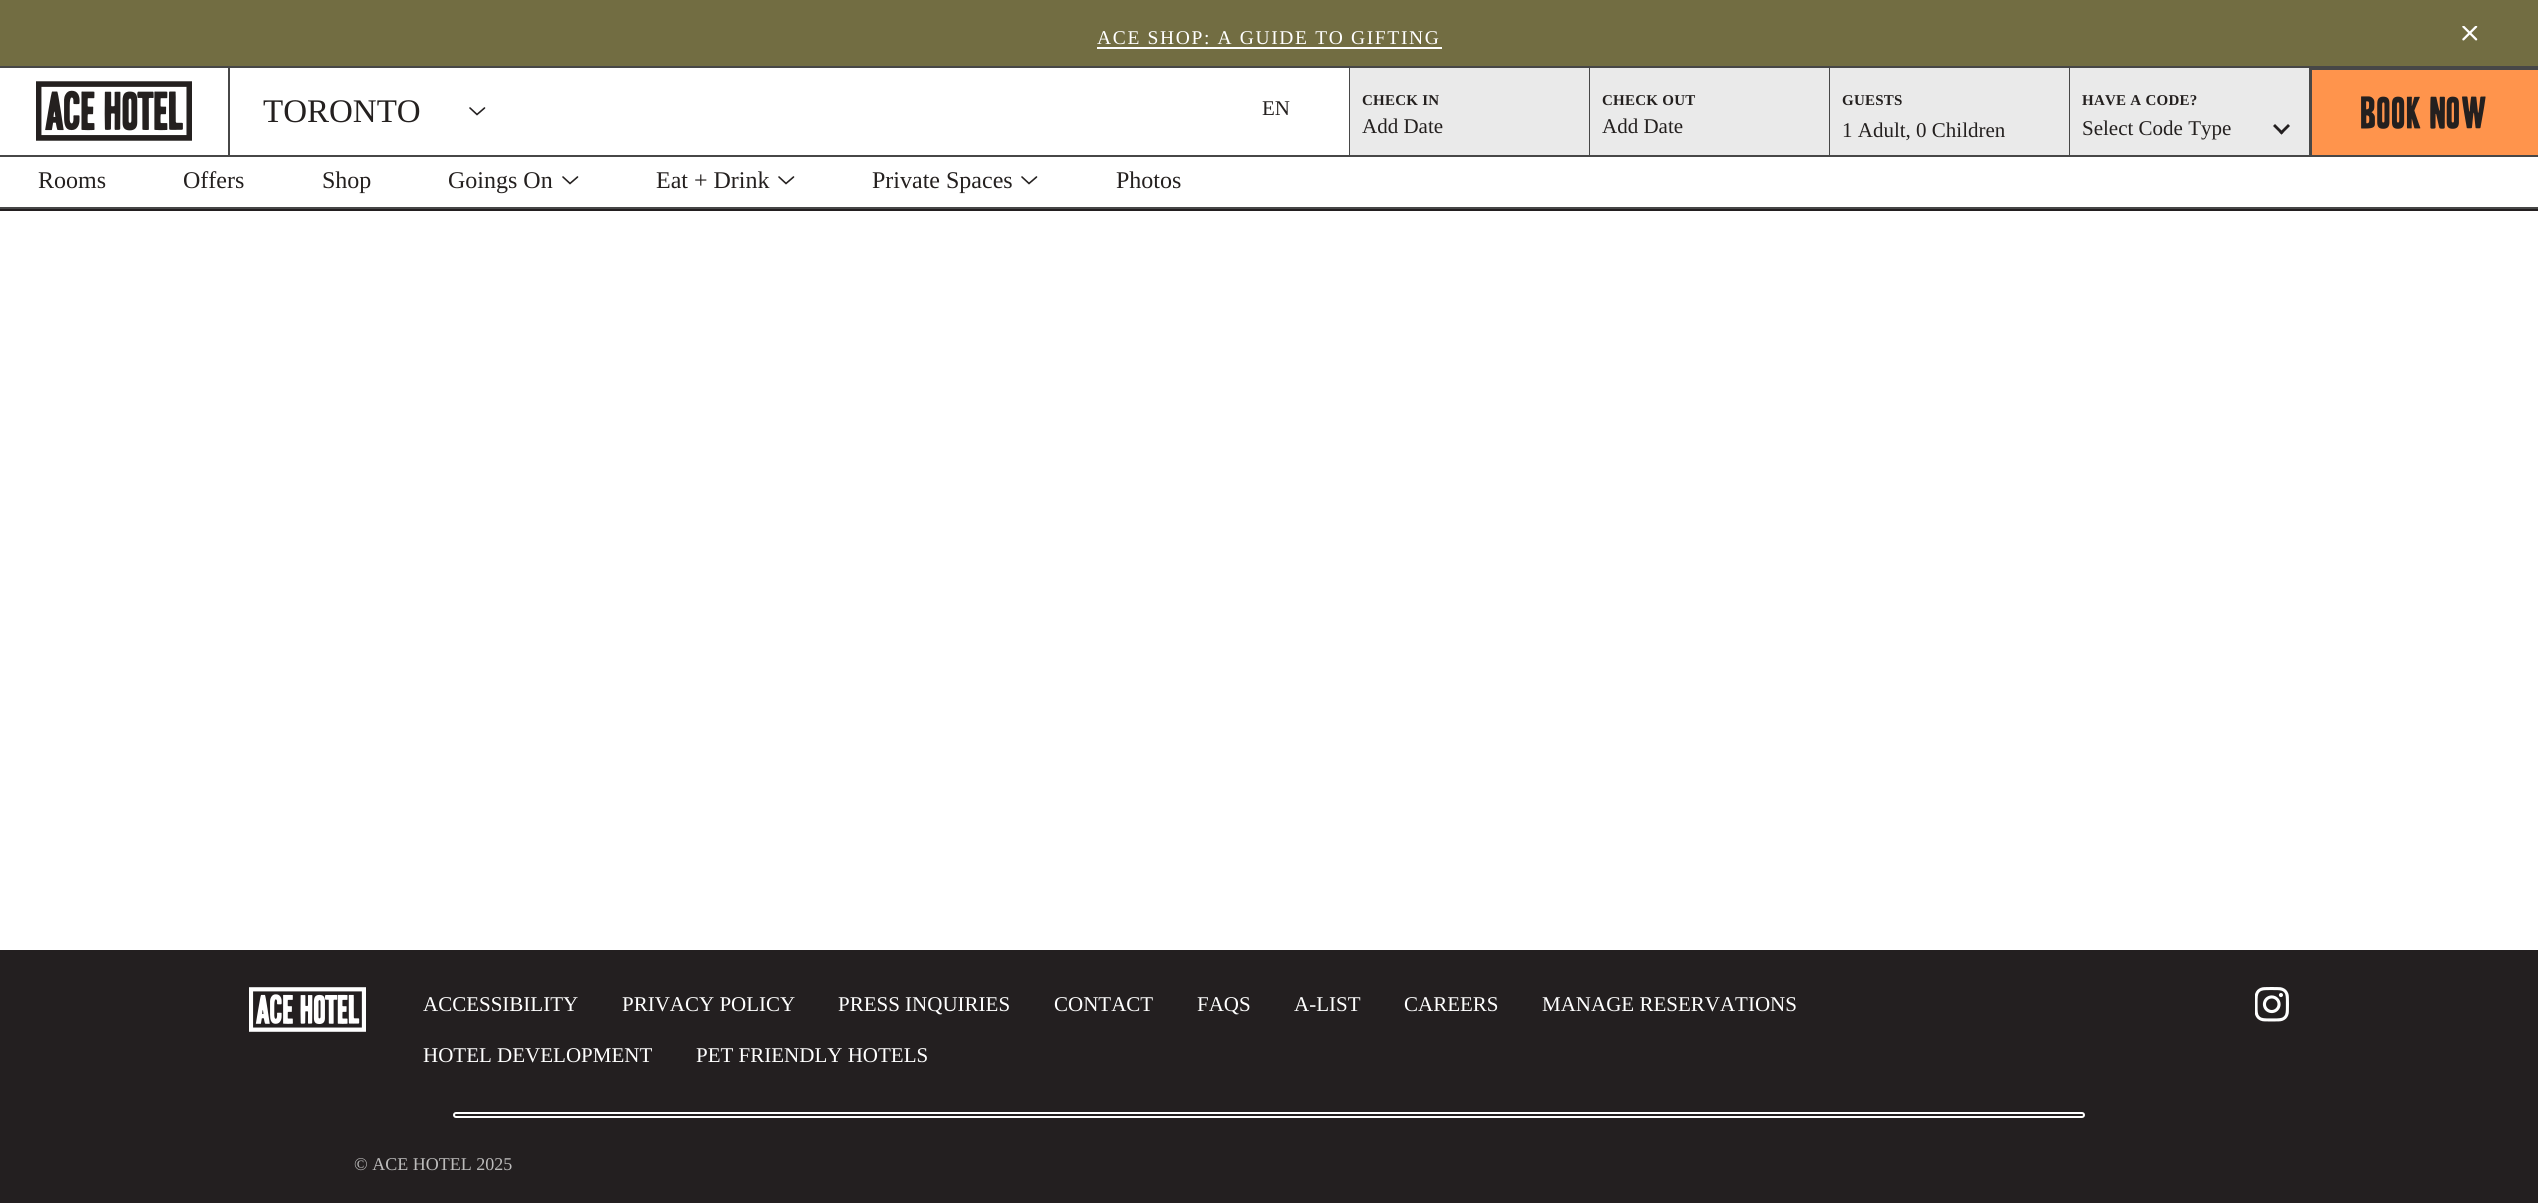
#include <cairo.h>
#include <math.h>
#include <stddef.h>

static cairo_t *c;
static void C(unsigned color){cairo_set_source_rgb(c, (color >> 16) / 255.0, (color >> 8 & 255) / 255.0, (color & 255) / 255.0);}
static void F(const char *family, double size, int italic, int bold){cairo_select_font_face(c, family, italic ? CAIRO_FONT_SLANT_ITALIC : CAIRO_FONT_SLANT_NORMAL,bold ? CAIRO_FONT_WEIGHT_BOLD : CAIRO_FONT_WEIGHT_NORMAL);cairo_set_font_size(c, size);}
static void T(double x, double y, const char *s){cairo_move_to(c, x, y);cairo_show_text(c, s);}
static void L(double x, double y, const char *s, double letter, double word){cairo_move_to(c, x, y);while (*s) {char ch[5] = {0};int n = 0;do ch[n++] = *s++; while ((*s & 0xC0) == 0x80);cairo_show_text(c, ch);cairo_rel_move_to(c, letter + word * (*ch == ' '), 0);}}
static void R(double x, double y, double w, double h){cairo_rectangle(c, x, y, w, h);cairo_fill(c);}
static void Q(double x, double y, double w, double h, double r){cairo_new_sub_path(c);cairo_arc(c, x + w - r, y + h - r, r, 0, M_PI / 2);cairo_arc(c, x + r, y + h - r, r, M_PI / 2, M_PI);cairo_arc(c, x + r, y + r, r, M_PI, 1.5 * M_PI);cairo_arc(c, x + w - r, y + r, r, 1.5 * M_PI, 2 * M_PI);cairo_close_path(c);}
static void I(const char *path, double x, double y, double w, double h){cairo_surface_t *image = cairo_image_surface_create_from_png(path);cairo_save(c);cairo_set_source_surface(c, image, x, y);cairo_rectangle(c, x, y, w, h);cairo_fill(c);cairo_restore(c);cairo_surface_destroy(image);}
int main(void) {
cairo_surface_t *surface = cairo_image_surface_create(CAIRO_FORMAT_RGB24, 2538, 1203);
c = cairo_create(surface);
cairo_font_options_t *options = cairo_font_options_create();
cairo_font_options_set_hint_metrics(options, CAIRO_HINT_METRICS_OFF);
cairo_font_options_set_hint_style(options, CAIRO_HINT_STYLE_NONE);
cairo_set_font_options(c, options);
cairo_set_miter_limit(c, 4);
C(0xffffff);
cairo_paint(c);
C(0x726d42);
R(0,0,2538,66);
F("Liberation Serif",19.5,0,0);
C(0xffffff);
L(1097,44,"ACE SHOP: A GUIDE TO GIFTING",1.65,0);
R(1097,47,345,2);
I("1.png",2462,26,16,15);
C(0x231f20);
R(0,209,2538,2);
C(0x474747);
R(0,66,2538,2);
R(0,155,1350,2);
R(228,68,2,87);
I("2.png",36,81,156,60);
F("Liberation Serif",33,0,0);
C(0x24201f);
T(263,122,"TORONTO");
cairo_new_path(c);
cairo_move_to(c,470,108);
cairo_line_to(c,477,114.5);
cairo_line_to(c,484.5,108);
C(0x231f20);
cairo_set_line_width(c,1.6);
cairo_set_line_cap(c,CAIRO_LINE_CAP_ROUND);
cairo_stroke(c);
C(0x474747);
R(1349,68,1,87);
F("Liberation Serif",21,0,0);
C(0x24201f);
T(1262,115,"EN");
C(0xeaeaea);
R(1350,68,239,87);
C(0x474747);
R(1589,68,1,88);
R(1350,155,240,2);
F("Liberation Serif",15,0,1);
C(0x24201f);
L(1362,105,"CHECK IN",.25,0);
F("Liberation Serif",21,0,0);
T(1362,133,"Add Date");
C(0xeaeaea);
R(1590,68,239,87);
C(0x474747);
R(1829,68,1,88);
R(1590,155,240,2);
F("Liberation Serif",15,0,1);
C(0x24201f);
L(1602,105,"CHECK OUT",.25,0);
F("Liberation Serif",21,0,0);
T(1602,133,"Add Date");
C(0xeaeaea);
R(1830,68,239,87);
C(0x474747);
R(2069,68,1,88);
R(2310,68,228,2);
R(2310,155,228,2);
R(2309,68,3,88);
R(1830,155,480,2);
F("Liberation Serif",15,0,1);
C(0x24201f);
L(1842,105,"GUESTS",.25,0);
F("Liberation Serif",21,0,0);
T(1842,137,"1 Adult, 0 Children");
C(0xeaeaea);
R(2070,68,239,87);
F("Liberation Serif",15,0,1);
C(0x24201f);
L(2082,105,"HAVE A CODE?",.25,0);
F("Liberation Serif",21,0,0);
T(2082,135,"Select Code Type");
C(0x231f20);
cairo_new_path(c);
cairo_move_to(c,2288,124);
cairo_line_to(c,2290,126);
cairo_line_to(c,2281.5,134.5);
cairo_line_to(c,2279.5,132.5);
cairo_close_path(c);
cairo_fill(c);
cairo_new_path(c);
cairo_move_to(c,2275,124);
cairo_line_to(c,2283.5,132.5);
cairo_line_to(c,2281.5,134.5);
cairo_line_to(c,2273,126);
cairo_close_path(c);
cairo_fill(c);
C(0xff944c);
R(2312,70,226,85);
F("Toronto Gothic",39,0,0);
C(0x24201f);
L(2361,128,"BOOK NOW",.75,0);
C(0x474747);
R(0,207,2538,2);
F("Liberation Serif",24,0,0);
C(0x24201f);
T(38,188,"Rooms");
T(183,188,"Offers");
T(322,188,"Shop");
T(448,188,"Goings On");
cairo_new_path(c);
cairo_move_to(c,563,177);
cairo_line_to(c,570,183.5);
cairo_line_to(c,577.5,177);
cairo_stroke(c);
T(656,188,"Eat + Drink");
cairo_new_path(c);
cairo_move_to(c,779,177);
cairo_line_to(c,786,183.5);
cairo_line_to(c,793.5,177);
cairo_stroke(c);
T(872,188,"Private Spaces");
cairo_new_path(c);
cairo_move_to(c,1022,177);
cairo_line_to(c,1029,183.5);
cairo_line_to(c,1036.5,177);
cairo_stroke(c);
T(1116,188,"Photos");
C(0x231f20);
R(0,950,2538,253);
I("3.png",249,987,117,45);
F("Liberation Serif",21,0,0);
C(0xffffff);
T(423,1011,"ACCESSIBILITY");
T(622,1011,"PRIVACY POLICY");
T(838,1011,"PRESS INQUIRIES");
T(1054,1011,"CONTACT");
T(1197,1011,"FAQS");
T(1294,1011,"A-LIST");
T(1404,1011,"CAREERS");
T(1542,1011,"MANAGE RESERVATIONS");
T(423,1062,"HOTEL DEVELOPMENT");
T(696,1062,"PET FRIENDLY HOTELS");
I("4.png",2255,987,34,35);
Q(454,1113,1630,4,2);
cairo_set_line_width(c,2);
cairo_set_line_cap(c,CAIRO_LINE_CAP_BUTT);
cairo_stroke(c);
F("Liberation Serif",18,0,0);
C(0xbdbcbc);
T(354,1170,"© ACE HOTEL 2025");
cairo_surface_write_to_png(surface, "o.png");
cairo_font_options_destroy(options);
cairo_destroy(c);
cairo_surface_destroy(surface);
return 0;
}
